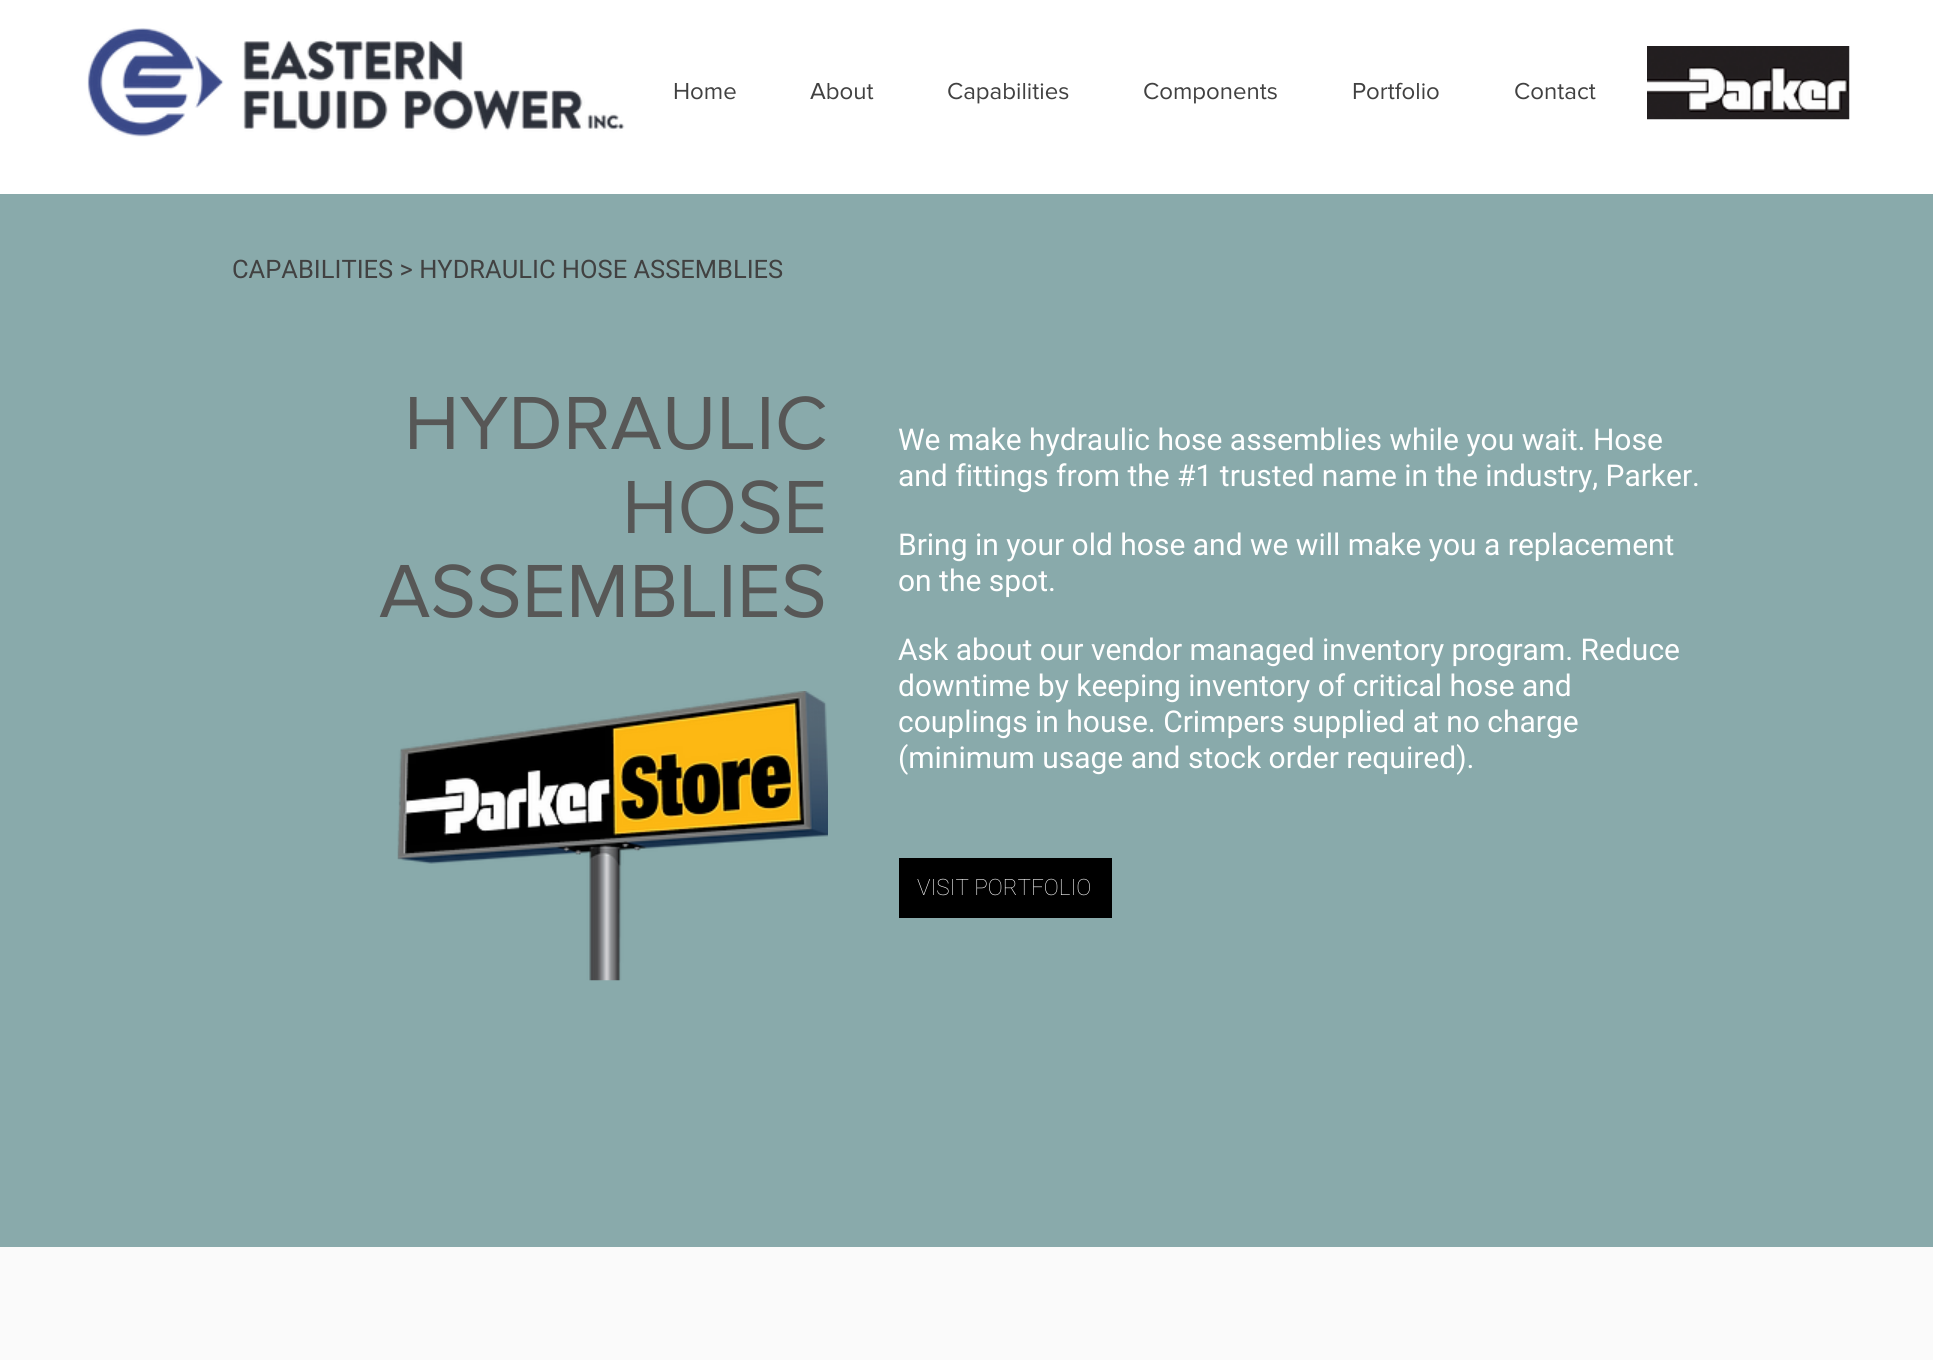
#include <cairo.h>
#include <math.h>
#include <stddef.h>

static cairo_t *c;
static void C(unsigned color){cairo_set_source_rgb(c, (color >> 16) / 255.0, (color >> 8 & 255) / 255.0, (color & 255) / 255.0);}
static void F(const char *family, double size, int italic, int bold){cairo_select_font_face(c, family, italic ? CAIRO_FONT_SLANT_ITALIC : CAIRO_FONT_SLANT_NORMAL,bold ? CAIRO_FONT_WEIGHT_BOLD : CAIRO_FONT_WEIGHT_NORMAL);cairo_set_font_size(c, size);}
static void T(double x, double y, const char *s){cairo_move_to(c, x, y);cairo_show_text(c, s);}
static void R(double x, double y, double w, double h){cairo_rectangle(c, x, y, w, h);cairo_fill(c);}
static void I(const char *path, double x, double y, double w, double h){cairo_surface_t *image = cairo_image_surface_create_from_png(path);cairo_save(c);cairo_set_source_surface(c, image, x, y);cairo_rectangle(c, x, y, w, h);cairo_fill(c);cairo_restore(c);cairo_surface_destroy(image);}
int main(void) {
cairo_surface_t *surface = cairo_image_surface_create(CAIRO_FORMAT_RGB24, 1933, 1360);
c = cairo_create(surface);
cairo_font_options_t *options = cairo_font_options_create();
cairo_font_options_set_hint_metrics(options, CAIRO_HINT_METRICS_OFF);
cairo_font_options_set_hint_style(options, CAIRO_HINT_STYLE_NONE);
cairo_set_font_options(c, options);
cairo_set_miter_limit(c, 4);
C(0xffffff);
cairo_paint(c);
I("1.png",87,28,538,109);
F("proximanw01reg",24,0,0);
C(0x414141);
T(673,99,"Home");
T(810,99,"About");
T(947,99,"Capabilities");
T(1143,99,"Components");
T(1352,99,"Portfolio");
T(1514,99,"Contact");
I("2.png",1647,46,203,74);
C(0x89aaab);
R(0,194,1933,1053);
F("Roboto",25.5,0,0);
C(0x414141);
T(232,278,"CAPABILITIES > HYDRAULIC HOSE ASSEMBLIES");
F("proximanw01reg",78,0,0);
C(0x575756);
T(404,449,"HYDRAULIC");
T(622,533,"HOSE");
T(379,617,"ASSEMBLIES");
F("Roboto",30,0,0);
C(0xffffff);
T(898,450,"We make hydraulic hose assemblies while you wait. Hose");
T(898,486,"and fittings from the #1 trusted name in the industry, Parker.");
T(898,555,"Bring in your old hose and we will make you a replacement");
T(898,591,"on the spot.");
T(898,660,"Ask about our vendor managed inventory program. Reduce");
T(898,696,"downtime by keeping inventory of critical hose and");
T(898,732,"couplings in house. Crimpers supplied at no charge");
T(898,768,"(minimum usage and stock order required).");
I("3.png",397,691,431,290);
C(0x000000);
R(899,858,213,60);
F("Roboto Thin",22.5,0,0);
C(0xffffff);
T(917,895,"VISIT PORTFOLIO");
C(0xfafafa);
R(0,1247,1933,113);
cairo_surface_write_to_png(surface, "o.png");
cairo_font_options_destroy(options);
cairo_destroy(c);
cairo_surface_destroy(surface);
return 0;
}
